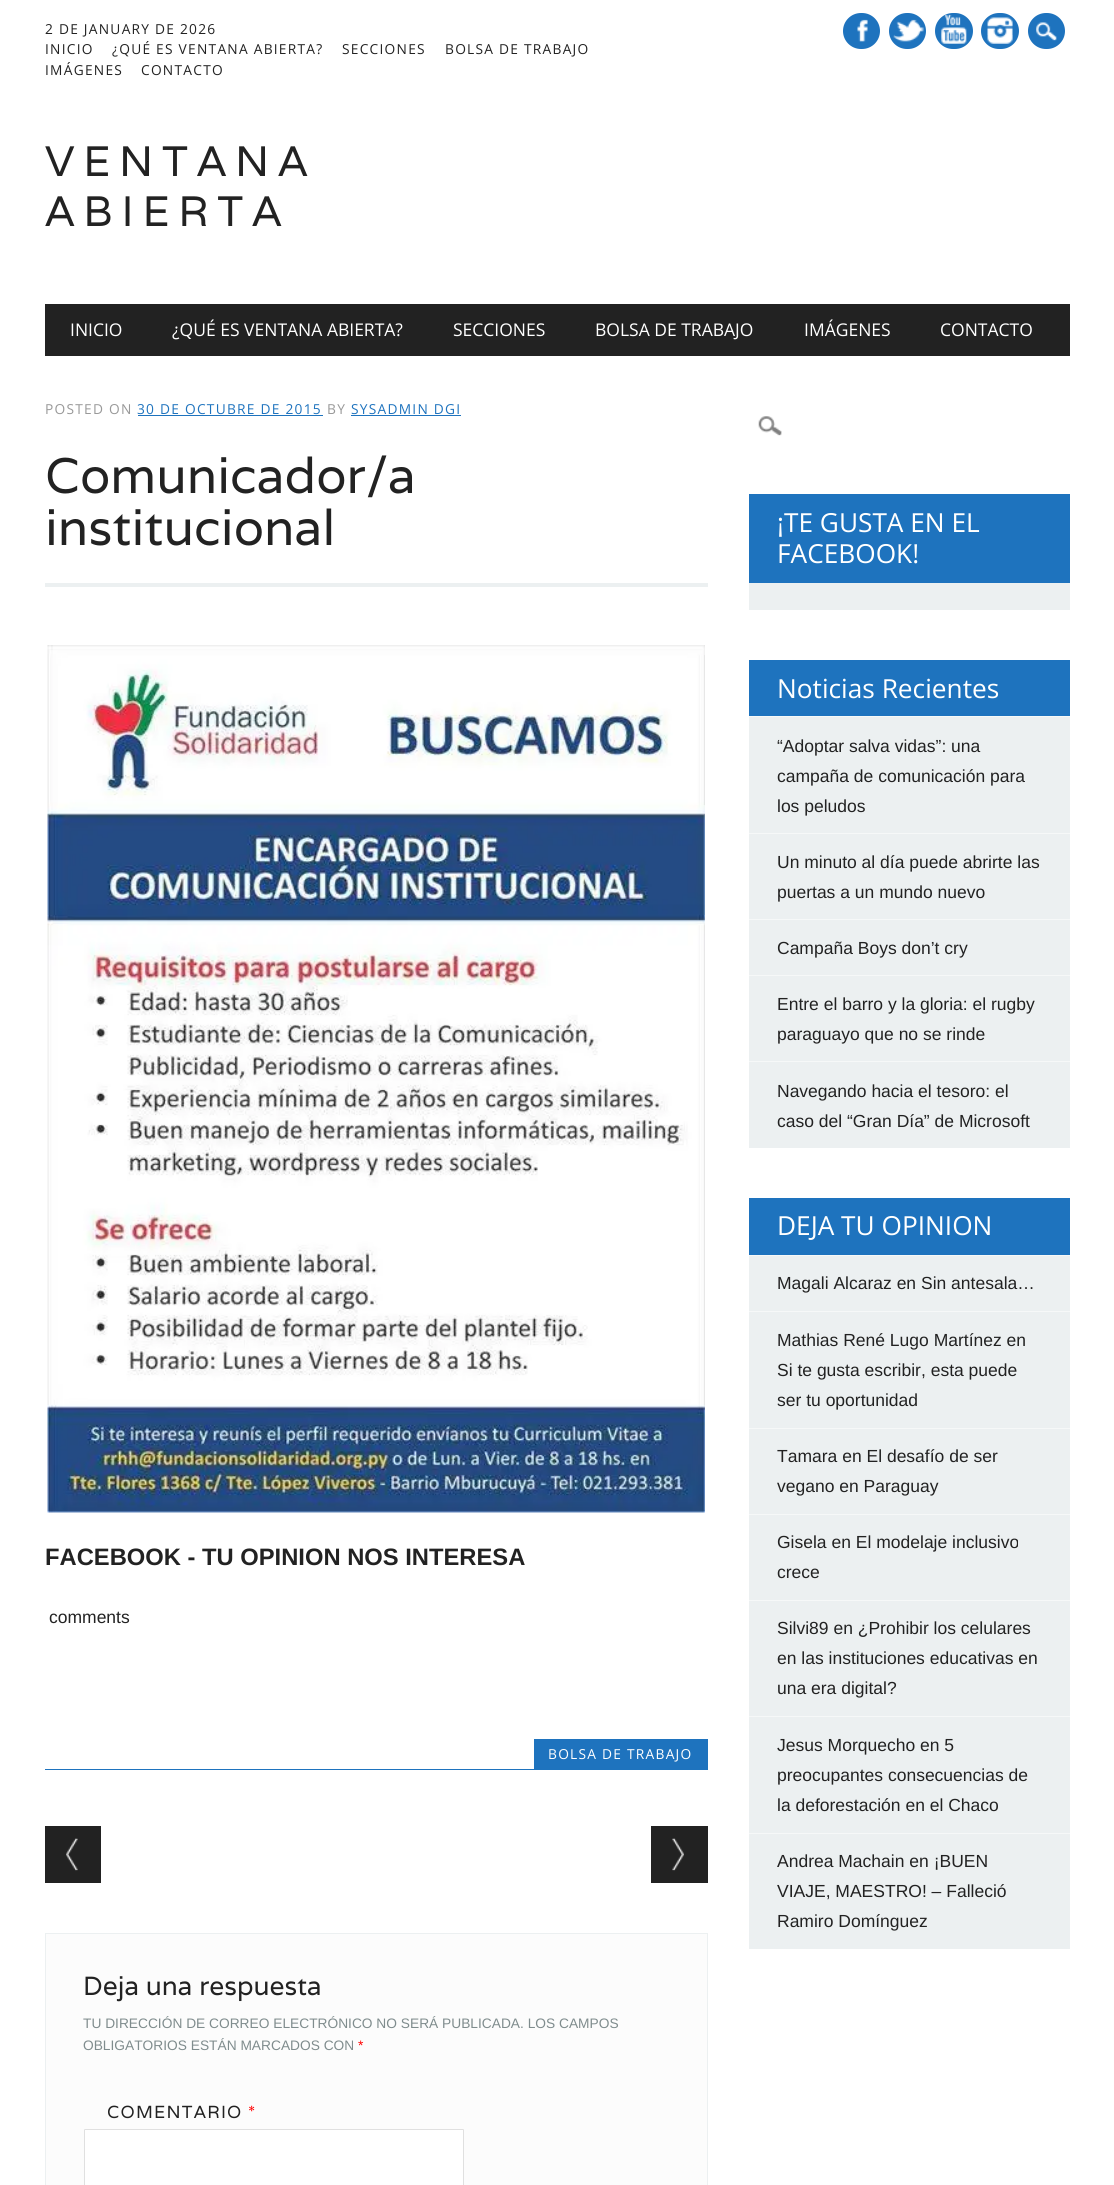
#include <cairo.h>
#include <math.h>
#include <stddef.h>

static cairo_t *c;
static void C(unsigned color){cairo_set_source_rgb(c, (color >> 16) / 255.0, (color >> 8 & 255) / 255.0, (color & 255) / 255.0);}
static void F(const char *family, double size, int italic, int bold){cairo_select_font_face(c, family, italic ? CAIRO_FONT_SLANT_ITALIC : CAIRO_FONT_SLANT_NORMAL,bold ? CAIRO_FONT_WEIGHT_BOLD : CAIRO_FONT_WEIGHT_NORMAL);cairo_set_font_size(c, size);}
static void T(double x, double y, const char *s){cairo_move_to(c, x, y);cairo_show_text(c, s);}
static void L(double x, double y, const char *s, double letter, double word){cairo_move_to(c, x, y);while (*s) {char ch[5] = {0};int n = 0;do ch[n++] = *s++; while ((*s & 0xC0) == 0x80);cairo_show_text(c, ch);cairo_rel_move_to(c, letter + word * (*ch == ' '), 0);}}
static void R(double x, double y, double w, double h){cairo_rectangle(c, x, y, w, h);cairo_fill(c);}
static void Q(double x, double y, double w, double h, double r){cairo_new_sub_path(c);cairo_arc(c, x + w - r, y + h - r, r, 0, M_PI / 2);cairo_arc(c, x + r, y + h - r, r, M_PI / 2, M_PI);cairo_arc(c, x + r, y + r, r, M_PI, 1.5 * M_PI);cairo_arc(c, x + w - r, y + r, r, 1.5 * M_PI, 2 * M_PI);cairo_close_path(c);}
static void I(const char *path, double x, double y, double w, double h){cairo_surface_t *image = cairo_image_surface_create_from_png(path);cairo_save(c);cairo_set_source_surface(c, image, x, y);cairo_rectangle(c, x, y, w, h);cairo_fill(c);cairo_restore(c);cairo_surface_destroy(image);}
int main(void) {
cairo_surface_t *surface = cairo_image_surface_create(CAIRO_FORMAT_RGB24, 1114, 2185);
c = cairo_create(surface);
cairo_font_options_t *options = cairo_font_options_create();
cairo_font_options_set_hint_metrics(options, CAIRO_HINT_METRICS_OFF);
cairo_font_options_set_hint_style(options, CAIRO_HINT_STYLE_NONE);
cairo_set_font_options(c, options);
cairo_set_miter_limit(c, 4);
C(0xffffff);
cairo_paint(c);
F("Open Sans",13.75,0,0);
C(0x222222);
L(45,34,"2 DE JANUARY DE 2026",1.25,0);
L(45,54,"INICIO",1.25,0);
L(112,54,"¿QUÉ ES VENTANA ABIERTA?",1.25,0);
L(342,54,"SECCIONES",1.25,0);
L(445,54,"BOLSA DE TRABAJO",1.25,0);
L(45,75,"IMÁGENES",1.25,0);
L(141,75,"CONTACTO",1.25,0);
C(0x1e73be);
Q(843,13,37,36,18);
cairo_fill(c);
I("1.png",857,19,11,23);
Q(889,13,37,36,18);
cairo_fill(c);
I("2.png",893,19,31,23);
Q(935,13,38,36,18);
cairo_fill(c);
I("3.png",941,14,26,30);
Q(981,13,38,36,18);
cairo_fill(c);
I("4.png",987,17,26,27);
Q(1028,13,37,36,18);
cairo_fill(c);
I("5.png",1036,22,21,19);
F("Varela",42.5,0,0);
C(0x222222);
L(45,176,"VENTANA",8.75,0);
L(45,226,"ABIERTA",8.75,0);
R(45,304,1025,52);
F("Open Sans",17.5,0,0);
C(0xffffff);
T(70,336,"INICIO");
T(172,336,"¿QUÉ ES VENTANA ABIERTA?");
T(453,336,"SECCIONES");
T(595,336,"BOLSA DE TRABAJO");
T(804,336,"IMÁGENES");
T(940,336,"CONTACTO");
F("Open Sans",13.75,0,0);
C(0x999999);
L(45,414,"POSTED ON",1.25,0);
C(0x1e73be);
L(137,414,"30 DE OCTUBRE DE 2015",1.25,0);
R(138,415,185,1);
C(0x999999);
L(327,414,"BY",1.25,0);
C(0x1e73be);
L(351,414,"SYSADMIN DGI",1.25,0);
R(351,415,110,1);
C(0xecf0f1);
R(45,583,663,4);
F("Varela",50,0,0);
C(0x222222);
T(45,493,"Comunicador/a");
T(45,545,"institucional");
I("6.png",47,645,658,868);
F("Liberation Sans",23.75,0,1);
T(45,1565,"FACEBOOK - TU OPINION NOS INTERESA");
F("Liberation Sans",17.5,0,0);
T(49,1623,"comments");
C(0x1e73be);
R(534,1739,174,30);
F("Open Sans",13.75,0,0);
C(0xffffff);
L(548,1759,"BOLSA DE TRABAJO",1.25,0);
C(0x1e73be);
R(45,1769,663,1);
C(0x222222);
R(45,1826,56,57);
I("7.png",66,1838,12,33);
R(651,1826,57,57);
I("8.png",672,1838,12,33);
C(0xfcfcfc);
cairo_rectangle(c,45.5,1933.5,662,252);
cairo_fill_preserve(c);
C(0xecf0f1);
cairo_set_line_width(c,1);
cairo_stroke(c);
F("Varela",26.25,0,0);
C(0x222222);
T(83,1995,"Deja una respuesta");
F("Liberation Sans",13.75,0,0);
C(0x7f8c8d);
T(83,2028,"TU DIRECCIÓN DE CORREO ELECTRÓNICO NO SERÁ PUBLICADA. LOS CAMPOS");
T(83,2050,"OBLIGATORIOS ESTÁN MARCADOS CON");
C(0xff0000);
T(358,2050,"*");
F("Varela",17.5,0,0);
C(0x222222);
L(107,2118,"COMENTARIO",1.25,0);
C(0xff0000);
L(248,2118,"*",1.25,0);
C(0xffffff);
Q(84.5,2129.5,379,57,.5);
cairo_fill_preserve(c);
C(0xe0e0e0);
cairo_stroke(c);
I("9.png",758,416,24,20);
C(0xecf0f1);
R(749,583,321,27);
C(0x1e73be);
R(749,494,321,89);
F("Open Sans",26.25,0,0);
C(0xffffff);
T(777,532,"¡TE GUSTA EN EL");
T(777,563,"FACEBOOK!");
C(0xecf0f1);
R(749,717,321,431);
C(0x1e73be);
R(749,660,321,56);
C(0xffffff);
T(777,698,"Noticias Recientes");
C(0xf6f8f8);
R(749,716,321,1);
F("Liberation Sans",17.5,0,0);
C(0x222222);
T(777,752,"“Adoptar salva vidas”: una");
T(777,782,"campaña de comunicación para");
T(777,812,"los peludos");
C(0xf6f8f8);
R(749,833,321,1);
C(0x222222);
T(777,868,"Un minuto al día puede abrirte las");
T(777,898,"puertas a un mundo nuevo");
C(0xf6f8f8);
R(749,919,321,1);
C(0x222222);
T(777,954,"Campaña Boys don’t cry");
C(0xf6f8f8);
R(749,975,321,1);
C(0x222222);
T(777,1010,"Entre el barro y la gloria: el rugby");
T(777,1040,"paraguayo que no se rinde");
C(0xf6f8f8);
R(749,1061,321,1);
C(0x222222);
T(777,1097,"Navegando hacia el tesoro: el");
T(777,1127,"caso del “Gran Día” de Microsoft");
C(0xecf0f1);
R(749,1256,321,693);
C(0x1e73be);
R(749,1198,321,57);
F("Open Sans",26.25,0,0);
C(0xffffff);
T(777,1235,"DEJA TU OPINION");
C(0xf6f8f8);
R(749,1255,321,1);
F("Liberation Sans",17.5,0,0);
C(0x222222);
T(777,1289,"Magali Alcaraz en Sin antesala…");
C(0xf6f8f8);
R(749,1311,321,1);
C(0x222222);
T(777,1346,"Mathias René Lugo Martínez en");
T(777,1376,"Si te gusta escribir, esta puede");
T(777,1406,"ser tu oportunidad");
C(0xf6f8f8);
R(749,1428,321,1);
C(0x222222);
T(777,1462,"Tamara en El desafío de ser");
T(777,1492,"vegano en Paraguay");
C(0xf6f8f8);
R(749,1514,321,1);
C(0x222222);
T(777,1548,"Gisela en El modelaje inclusivo");
T(777,1578,"crece");
C(0xf6f8f8);
R(749,1600,321,1);
C(0x222222);
T(777,1634,"Silvi89 en ¿Prohibir los celulares");
T(777,1664,"en las instituciones educativas en");
T(777,1694,"una era digital?");
C(0xf6f8f8);
R(749,1716,321,1);
C(0x222222);
T(777,1751,"Jesus Morquecho en 5");
T(777,1781,"preocupantes consecuencias de");
T(777,1811,"la deforestación en el Chaco");
C(0xf6f8f8);
R(749,1833,321,1);
C(0x222222);
T(777,1867,"Andrea Machain en ¡BUEN");
T(777,1897,"VIAJE, MAESTRO! – Falleció");
T(777,1927,"Ramiro Domínguez");
cairo_surface_write_to_png(surface, "o.png");
cairo_font_options_destroy(options);
cairo_destroy(c);
cairo_surface_destroy(surface);
return 0;
}
